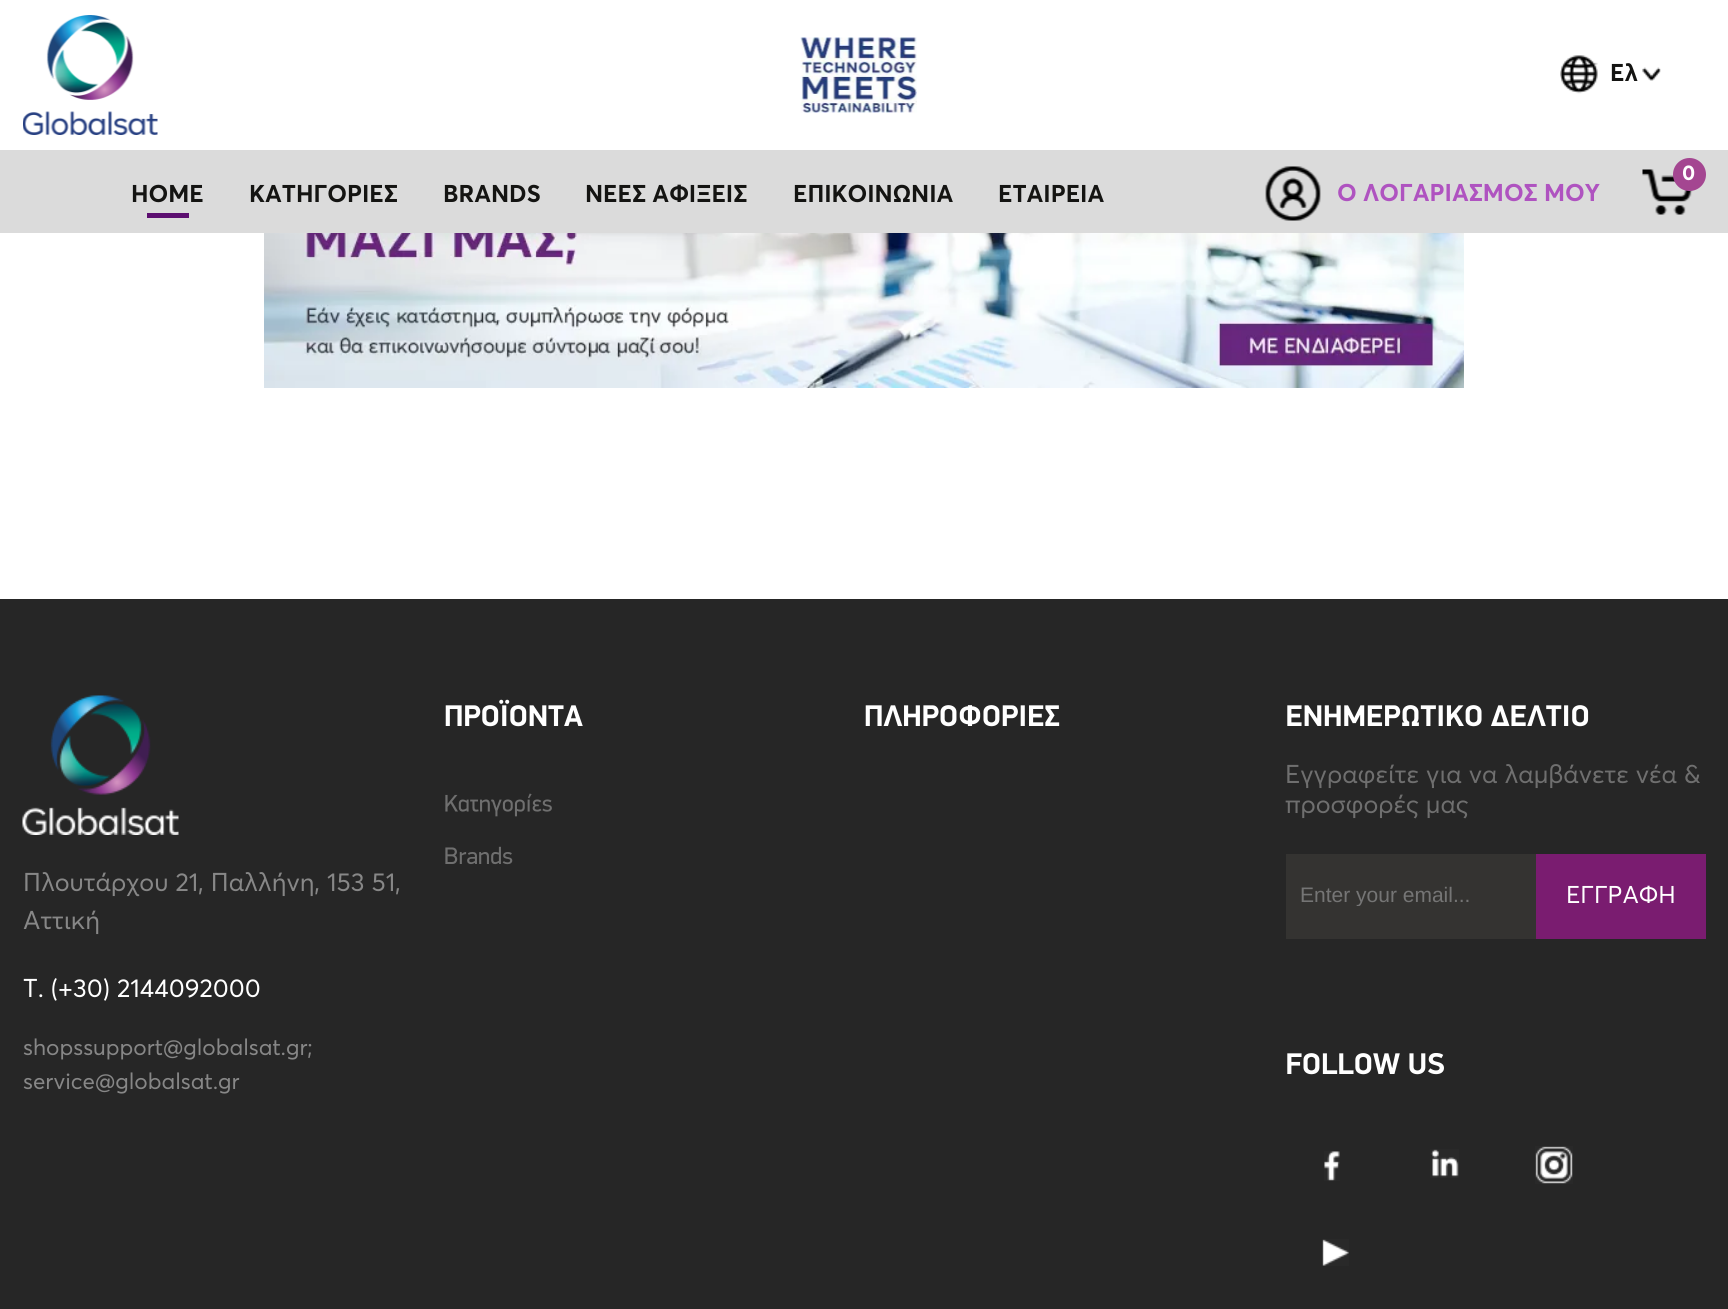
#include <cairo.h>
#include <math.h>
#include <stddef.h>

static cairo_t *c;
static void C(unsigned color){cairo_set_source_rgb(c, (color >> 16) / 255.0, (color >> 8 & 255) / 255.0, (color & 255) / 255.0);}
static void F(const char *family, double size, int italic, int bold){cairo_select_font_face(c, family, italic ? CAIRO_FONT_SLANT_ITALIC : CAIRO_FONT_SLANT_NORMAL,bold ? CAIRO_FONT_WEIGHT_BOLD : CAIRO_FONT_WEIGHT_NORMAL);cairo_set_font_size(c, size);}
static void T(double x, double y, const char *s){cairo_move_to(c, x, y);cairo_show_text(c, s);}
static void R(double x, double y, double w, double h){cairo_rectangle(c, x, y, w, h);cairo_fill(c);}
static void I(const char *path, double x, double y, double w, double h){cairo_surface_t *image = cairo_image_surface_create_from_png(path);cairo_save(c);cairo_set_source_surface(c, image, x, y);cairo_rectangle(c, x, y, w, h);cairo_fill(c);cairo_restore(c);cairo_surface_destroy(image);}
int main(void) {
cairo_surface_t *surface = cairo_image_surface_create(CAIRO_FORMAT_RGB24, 1728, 1309);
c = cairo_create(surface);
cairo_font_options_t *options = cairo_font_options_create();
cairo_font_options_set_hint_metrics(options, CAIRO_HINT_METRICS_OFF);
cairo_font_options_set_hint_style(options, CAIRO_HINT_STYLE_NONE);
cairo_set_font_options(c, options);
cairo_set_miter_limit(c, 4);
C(0xffffff);
cairo_paint(c);
I("1.png",23,15,135,120);
I("2.png",800,37,117,76);
I("3.png",1560,55,38,39);
I("4.png",1642,67,19,14);
F("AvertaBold",24,0,1);
C(0x141412);
T(1610,81,"Ελ");
C(0xdbdbdb);
R(0,150,1728,83);
I("5.png",1642,169,51,46);
C(0xa44691);
cairo_arc(c,1689.5,174.5,16.5,0,2 * M_PI);
cairo_fill(c);
F("AvertaBold",21,0,1);
C(0xffffff);
T(1682,180,"0");
F("AvertaBold",24,0,1);
C(0x141412);
T(131,202,"HOME");
C(0x5c0e70);
R(147,213,42,5);
C(0x141412);
T(249,202,"ΚΑΤΗΓΟΡΙΕΣ");
T(443,202,"BRANDS");
T(585,202,"ΝΕΕΣ ΑΦΙΞΕΙΣ");
T(793,202,"ΕΠΙΚΟΙΝΩΝΙΑ");
T(998,202,"ΕΤΑΙΡΕΙΑ");
I("6.png",1265,166,56,55);
C(0xaf53c0);
T(1337,201,"Ο ΛΟΓΑΡΙΑΣΜΟΣ ΜΟΥ");
I("7.png",264,233,1200,155);
C(0x262626);
R(0,599,1728,710);
I("8.png",445,699,138,28);
I("9.png",445,793,107,24);
I("10.png",445,846,68,19);
I("11.png",865,705,195,22);
I("12.png",1287,705,302,22);
F("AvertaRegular",25.5,0,0);
C(0x6f6f6f);
T(1285,783,"Eγγραφείτε για να λαμβάνετε νέα &");
T(1285,813,"προσφορές μας");
C(0x343331);
R(1286,854,250,85);
cairo_save(c);
cairo_rectangle(c,1301,882,220,24);
cairo_clip(c);
F("Liberation Sans",21,0,0);
C(0x757575);
T(1300,902,"Enter your email...");
cairo_restore(c);
C(0x7a1c70);
R(1536,854,170,85);
F("AvertaRegular",24,0,0);
C(0xffffff);
T(1566,903,"ΕΓΓΡΑΦΗ");
I("13.png",1287,1053,157,22);
I("14.png",1324,1151,16,30);
I("15.png",1430,1149,29,29);
I("16.png",1535,1146,38,38);
I("17.png",1322,1239,27,27);
I("18.png",22,695,157,140);
F("AvertaRegular",25.5,0,0);
C(0x878787);
T(23,891,"Πλουτάρχου 21, Παλλήνη, 153 51,");
T(23,929,"Αττική");
C(0xffffff);
T(23,997,"T. (+30) 2144092000");
F("AvertaRegular",22.5,0,0);
C(0x878787);
T(23,1055,"shopssupport@globalsat.gr;");
T(23,1089,"service@globalsat.gr");
cairo_surface_write_to_png(surface, "o.png");
cairo_font_options_destroy(options);
cairo_destroy(c);
cairo_surface_destroy(surface);
return 0;
}
